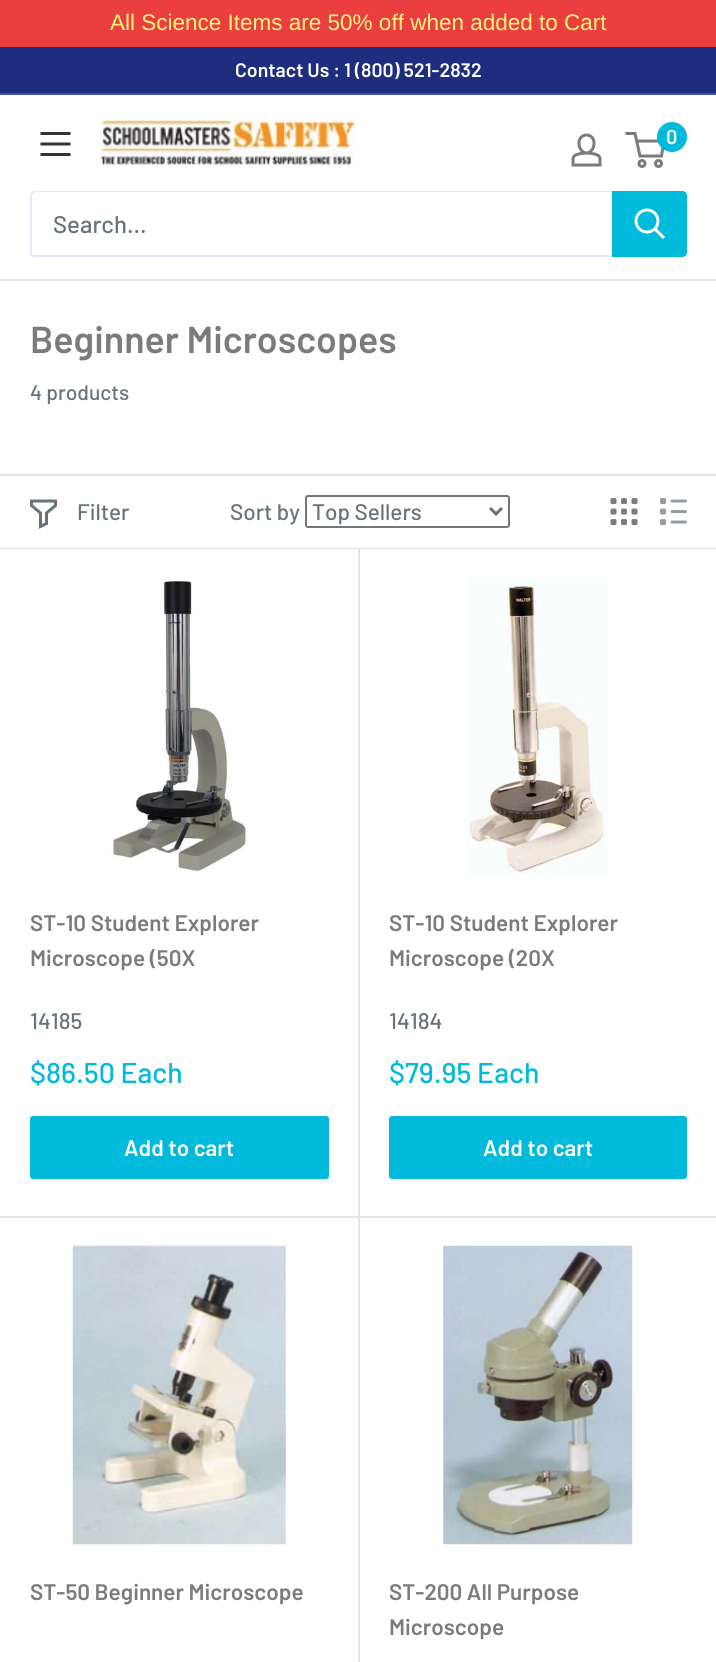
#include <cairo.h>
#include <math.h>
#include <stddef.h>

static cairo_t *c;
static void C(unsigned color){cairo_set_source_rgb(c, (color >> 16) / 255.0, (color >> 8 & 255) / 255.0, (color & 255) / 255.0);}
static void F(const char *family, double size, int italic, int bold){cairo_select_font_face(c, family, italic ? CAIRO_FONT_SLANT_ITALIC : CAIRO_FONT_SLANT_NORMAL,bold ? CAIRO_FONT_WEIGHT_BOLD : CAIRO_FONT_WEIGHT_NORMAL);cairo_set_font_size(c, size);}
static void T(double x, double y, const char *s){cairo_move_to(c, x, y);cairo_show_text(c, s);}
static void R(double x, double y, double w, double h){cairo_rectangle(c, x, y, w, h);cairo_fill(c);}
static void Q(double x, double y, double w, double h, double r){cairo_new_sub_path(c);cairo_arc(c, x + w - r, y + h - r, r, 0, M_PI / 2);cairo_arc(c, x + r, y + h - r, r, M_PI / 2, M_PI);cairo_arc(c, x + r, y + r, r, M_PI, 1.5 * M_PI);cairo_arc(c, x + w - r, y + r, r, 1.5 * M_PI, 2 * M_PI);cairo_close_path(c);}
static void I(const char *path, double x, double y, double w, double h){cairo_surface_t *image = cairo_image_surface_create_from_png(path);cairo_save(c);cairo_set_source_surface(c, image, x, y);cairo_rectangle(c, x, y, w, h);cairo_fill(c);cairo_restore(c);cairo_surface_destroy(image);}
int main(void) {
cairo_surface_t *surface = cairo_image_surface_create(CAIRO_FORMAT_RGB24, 716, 1662);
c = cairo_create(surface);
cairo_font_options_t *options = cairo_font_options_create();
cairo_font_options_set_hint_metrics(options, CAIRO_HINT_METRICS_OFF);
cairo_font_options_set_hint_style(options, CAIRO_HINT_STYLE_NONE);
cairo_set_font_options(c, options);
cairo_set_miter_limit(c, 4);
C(0x1e2d7d);
cairo_paint(c);
C(0xeb3e3e);
R(0,0,716,47);
F("Liberation Sans",22.5,0,0);
C(0xfff681);
T(110,30,"All Science Items are 50% off when added to Cart");
C(0x46549f);
R(0,93,716,2);
F("Barlow SemiBold",19.5,0,0);
C(0xffffff);
T(235,77,"Contact Us : 1 (800) 521-2832");
R(0,95,716,184);
I("1.png",40,132,31,24);
I("2.png",100,119,256,48);
I("3.png",571,133,31,34);
cairo_arc(c,642,163.5,3,0,2 * M_PI);
C(0x7b7b7b);
cairo_set_line_width(c,3);
cairo_stroke(c);
cairo_arc(c,658.5,163.5,3,0,2 * M_PI);
cairo_stroke(c);
cairo_new_path(c);
cairo_move_to(c,636.5,141);
cairo_line_to(c,664,141);
cairo_line_to(c,661.5,156);
cairo_line_to(c,640,156);
cairo_line_to(c,635,133.5);
cairo_line_to(c,625.5,133.5);
cairo_stroke(c);
C(0x00badb);
cairo_arc(c,672,137,15,0,2 * M_PI);
cairo_fill(c);
F("Barlow SemiBold",20,0,0);
C(0xffffff);
T(666,144,"0");
C(0xe3e7fa);
cairo_new_path(c);
cairo_move_to(c,31,254);
cairo_curve_to(c,31,256,33,257,35,257);
cairo_line_to(c,682,257);
cairo_curve_to(c,685,257,687,255,687,252);
cairo_line_to(c,687,196);
cairo_curve_to(c,687,195,687,194,686,193);
cairo_line_to(c,686,250);
cairo_curve_to(c,686,253,683,255,681,255);
cairo_line_to(c,33,255);
cairo_close_path(c);
cairo_fill(c);
cairo_set_source_rgba(c,0.639,0.686,0.937,0.3);
cairo_new_path(c);
cairo_move_to(c,36,192);
cairo_line_to(c,685,192);
cairo_curve_to(c,684,191,683,191,682,191);
cairo_line_to(c,35,191);
cairo_curve_to(c,32,191,30,193,30,196);
cairo_line_to(c,30,252);
cairo_curve_to(c,30,254,31,256,33,257);
cairo_curve_to(c,32,256,32,255,32,254);
cairo_line_to(c,32,196);
cairo_curve_to(c,32,194,34,192,36,192);
cairo_close_path(c);
cairo_fill(c);
F("Barlow Medium",24,0,0);
C(0x677279);
T(53,233,"Search...");
C(0x00badb);
cairo_new_path(c);
cairo_move_to(c,612,191);
cairo_line_to(c,682,191);
cairo_curve_to(c,685,191,687,193,687,196);
cairo_line_to(c,687,252);
cairo_curve_to(c,687,255,685,257,682,257);
cairo_line_to(c,612,257);
cairo_close_path(c);
cairo_fill(c);
cairo_new_path(c);
cairo_move_to(c,663,237);
cairo_line_to(c,655.5,229.5);
C(0xffffff);
cairo_set_line_cap(c,CAIRO_LINE_CAP_SQUARE);
cairo_stroke(c);
cairo_arc(c,647,221,11,0,2 * M_PI);
cairo_set_line_cap(c,CAIRO_LINE_CAP_BUTT);
cairo_stroke(c);
R(0,281,716,1381);
C(0xe1e3e4);
R(0,279,716,2);
F("Barlow SemiBold",37.5,0,0);
C(0x7b7b7b);
T(30,353,"Beginner Microscopes");
F("Barlow Medium",21,0,0);
C(0x677279);
T(30,400,"4 products");
C(0xe1e3e4);
R(0,474,716,2);
I("6.png",109,579,139,293);
F("Barlow SemiBold",22.5,0,0);
C(0x7b7b7b);
T(30,931,"ST-10 Student Explorer");
T(30,966,"Microscope (50X");
F("Barlow Medium",22.5,0,0);
C(0x677279);
T(30,1029,"14185");
F("Barlow Medium",28.5,0,0);
C(0x00badb);
T(30,1083,"$86.50 Each");
Q(30,1116,299,63,3);
cairo_fill(c);
F("Barlow SemiBold",22.5,0,0);
C(0xffffff);
T(124,1156,"Add to cart");
C(0xe1e3e4);
cairo_new_path(c);
cairo_move_to(c,0,1216);
cairo_line_to(c,0,1218);
cairo_line_to(c,359,1218);
cairo_line_to(c,359,549);
cairo_line_to(c,358,549);
cairo_line_to(c,358,1216);
cairo_close_path(c);
cairo_fill(c);
cairo_new_path(c);
cairo_move_to(c,2,1216);
cairo_line_to(c,2,1217);
cairo_line_to(c,360,1217);
cairo_line_to(c,360,548);
cairo_line_to(c,358,548);
cairo_line_to(c,358,1216);
cairo_close_path(c);
cairo_fill(c);
R(0,548,716,1);
cairo_new_path(c);
cairo_move_to(c,55.5,505.5);
cairo_line_to(c,46.5,513);
cairo_line_to(c,46.5,523.5);
cairo_line_to(c,40.5,526.5);
cairo_line_to(c,40.5,513);
cairo_line_to(c,31.5,505.5);
cairo_line_to(c,31.5,501);
cairo_line_to(c,55.5,501);
cairo_close_path(c);
C(0x677279);
cairo_set_line_cap(c,CAIRO_LINE_CAP_SQUARE);
cairo_stroke(c);
F("Barlow Medium",22.5,0,0);
T(77,520,"Filter");
T(230,520,"Sort by");
Q(306,496,203,31,2);
C(0x767676);
cairo_set_line_width(c,2);
cairo_set_line_cap(c,CAIRO_LINE_CAP_BUTT);
cairo_stroke(c);
cairo_new_path(c);
cairo_move_to(c,490,508);
cairo_line_to(c,496,514);
cairo_line_to(c,502,508);
C(0x677279);
cairo_set_line_width(c,3);
cairo_stroke(c);
T(312,520,"Top Sellers");
I("4.png",610,498,28,28);
I("5.png",660,498,27,28);
I("7.png",467,577,141,298);
F("Barlow SemiBold",22.5,0,0);
C(0x7b7b7b);
T(389,931,"ST-10 Student Explorer");
T(389,966,"Microscope (20X");
F("Barlow Medium",22.5,0,0);
C(0x677279);
T(389,1029,"14184");
F("Barlow Medium",28.5,0,0);
C(0x00badb);
T(389,1083,"$79.95 Each");
Q(389,1116,298,63,3);
cairo_fill(c);
F("Barlow SemiBold",22.5,0,0);
C(0xffffff);
T(483,1156,"Add to cart");
C(0xe1e3e4);
R(359,1216,357,2);
I("8.png",72,1245,214,300);
cairo_new_path(c);
cairo_move_to(c,2,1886);
cairo_line_to(c,360,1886);
cairo_line_to(c,360,1217);
cairo_line_to(c,358,1217);
cairo_line_to(c,358,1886);
cairo_close_path(c);
cairo_fill(c);
C(0x7b7b7b);
T(30,1600,"ST-50 Beginner Microscope");
I("9.png",443,1245,190,300);
T(389,1600,"ST-200 All Purpose");
T(389,1635,"Microscope");
cairo_surface_write_to_png(surface, "o.png");
cairo_font_options_destroy(options);
cairo_destroy(c);
cairo_surface_destroy(surface);
return 0;
}
